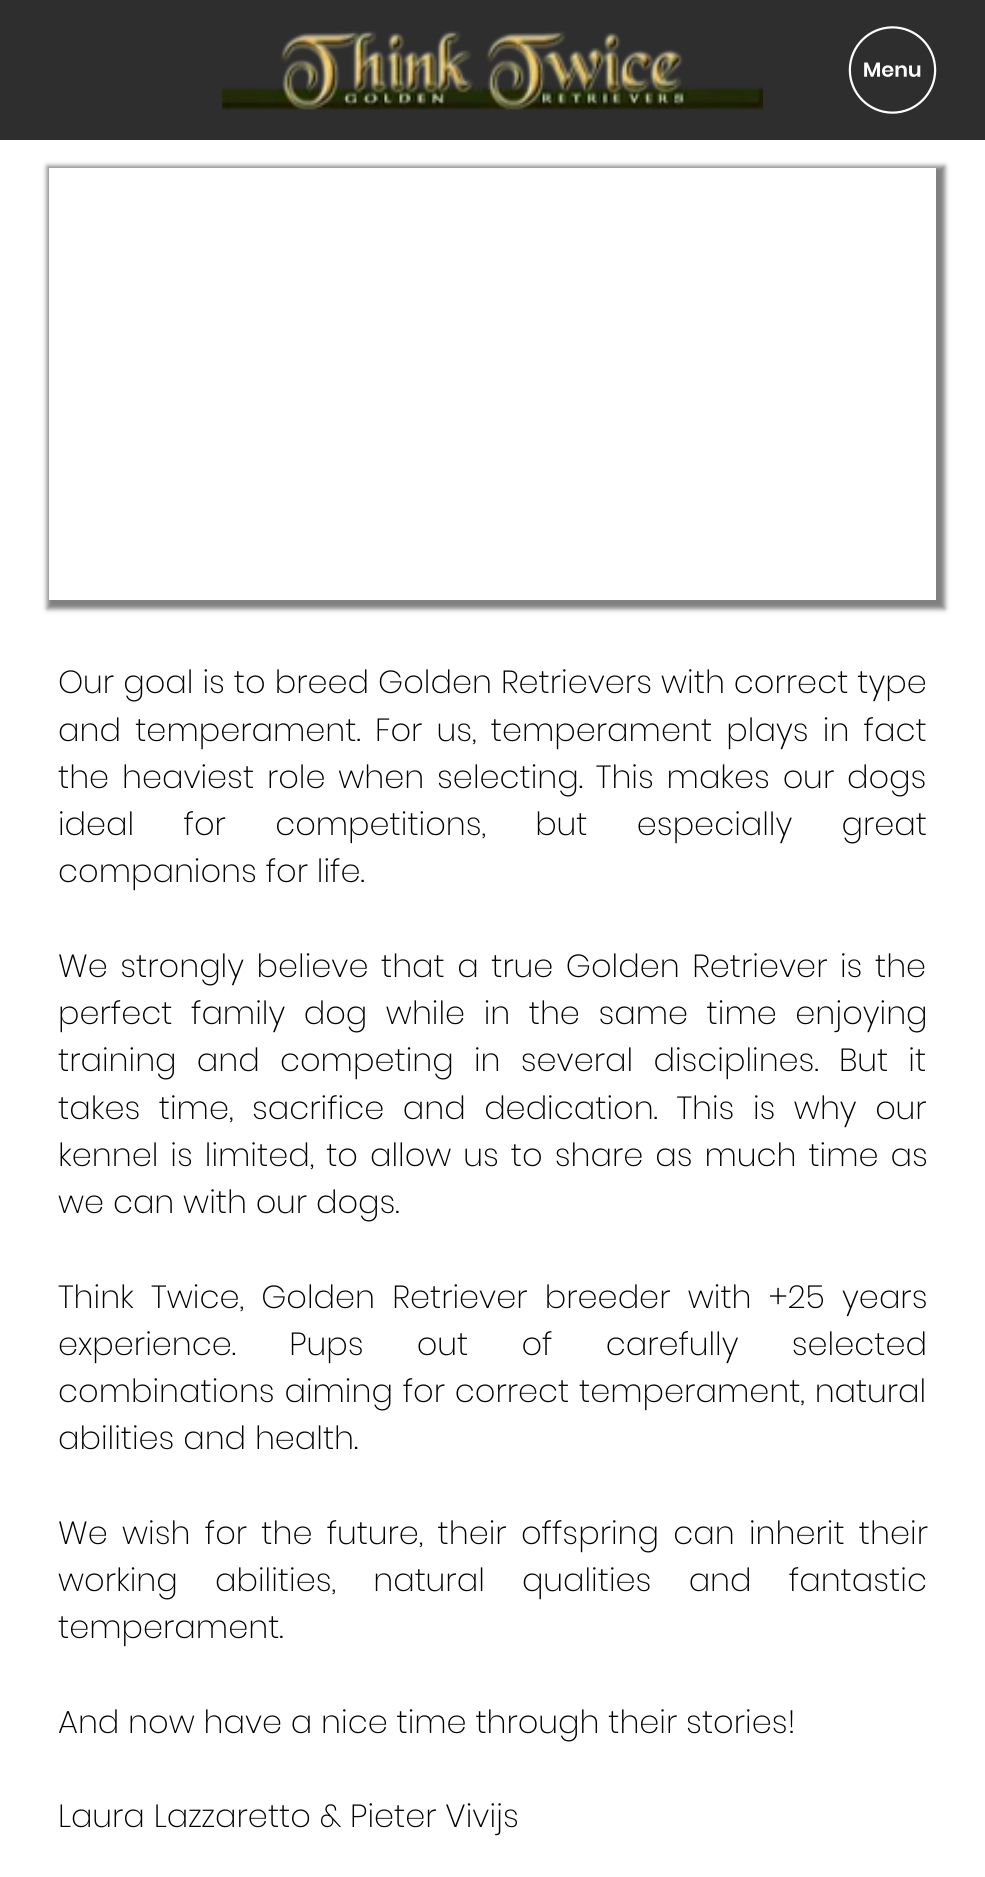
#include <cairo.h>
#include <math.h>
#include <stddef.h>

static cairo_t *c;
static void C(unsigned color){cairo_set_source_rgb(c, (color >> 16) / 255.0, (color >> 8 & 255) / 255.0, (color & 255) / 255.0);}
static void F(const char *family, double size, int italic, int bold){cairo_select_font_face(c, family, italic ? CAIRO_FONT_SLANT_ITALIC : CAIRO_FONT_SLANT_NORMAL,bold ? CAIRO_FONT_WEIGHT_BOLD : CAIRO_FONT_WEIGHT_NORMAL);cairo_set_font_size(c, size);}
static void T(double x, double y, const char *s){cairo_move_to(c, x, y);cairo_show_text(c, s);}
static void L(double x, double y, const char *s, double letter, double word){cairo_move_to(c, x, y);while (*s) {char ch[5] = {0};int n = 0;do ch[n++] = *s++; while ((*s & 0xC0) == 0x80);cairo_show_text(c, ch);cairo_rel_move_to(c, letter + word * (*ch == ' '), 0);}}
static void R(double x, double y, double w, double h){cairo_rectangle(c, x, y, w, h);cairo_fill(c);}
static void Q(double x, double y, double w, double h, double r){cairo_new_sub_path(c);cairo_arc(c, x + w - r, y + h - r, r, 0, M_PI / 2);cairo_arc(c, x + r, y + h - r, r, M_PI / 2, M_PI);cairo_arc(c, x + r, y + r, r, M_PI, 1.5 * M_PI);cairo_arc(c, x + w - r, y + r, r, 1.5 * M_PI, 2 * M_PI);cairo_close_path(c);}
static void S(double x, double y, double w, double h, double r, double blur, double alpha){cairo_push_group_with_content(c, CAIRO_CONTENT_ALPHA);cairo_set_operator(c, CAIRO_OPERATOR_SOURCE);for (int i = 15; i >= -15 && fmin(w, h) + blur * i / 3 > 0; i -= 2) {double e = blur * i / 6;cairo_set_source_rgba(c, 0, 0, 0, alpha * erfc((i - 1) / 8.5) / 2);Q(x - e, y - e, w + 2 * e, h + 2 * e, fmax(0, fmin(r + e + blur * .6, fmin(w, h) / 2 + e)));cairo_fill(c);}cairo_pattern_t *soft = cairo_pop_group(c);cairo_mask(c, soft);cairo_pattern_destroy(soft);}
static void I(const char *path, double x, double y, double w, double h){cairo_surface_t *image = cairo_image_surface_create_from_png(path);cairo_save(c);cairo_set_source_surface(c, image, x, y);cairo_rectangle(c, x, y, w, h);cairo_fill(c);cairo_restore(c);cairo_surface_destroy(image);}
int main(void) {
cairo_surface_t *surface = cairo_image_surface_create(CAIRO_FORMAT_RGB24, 985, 1877);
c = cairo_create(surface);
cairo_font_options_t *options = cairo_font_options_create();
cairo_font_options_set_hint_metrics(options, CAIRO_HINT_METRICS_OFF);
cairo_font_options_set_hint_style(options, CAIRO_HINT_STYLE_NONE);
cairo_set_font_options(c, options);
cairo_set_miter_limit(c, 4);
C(0xffffff);
cairo_paint(c);
C(0x2f2e2e);
R(0,0,985,140);
I("1.png",222,31,541,79);
I("2.png",848,26,89,88);
cairo_save(c);
cairo_set_fill_rule(c,CAIRO_FILL_RULE_EVEN_ODD);
cairo_new_path(c);
cairo_move_to(c,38,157);
cairo_line_to(c,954,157);
cairo_line_to(c,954,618);
cairo_line_to(c,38,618);
cairo_close_path(c);
cairo_move_to(c,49,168);
cairo_line_to(c,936,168);
cairo_line_to(c,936,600);
cairo_line_to(c,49,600);
cairo_close_path(c);
cairo_clip(c);
C(0x000000);
S(47,166,898,443,0,2.5,.5);
cairo_restore(c);
F("Poppins ExtraLight",31.95,0,0);
C(0x000000);
L(58,693,"Our goal is to breed Golden Retrievers with correct type",0,.25);
L(58,741,"and temperament. For us, temperament plays in fact",0,5.5);
L(58,788,"the heaviest role when selecting. This makes our dogs",0,4);
L(58,835,"ideal for competitions, but especially great",0,40.5);
T(58,882,"companions for life.");
L(58,977,"We strongly believe that a true Golden Retriever is the",0,3.75);
L(58,1024,"perfect family dog while in the same time enjoying",0,9.75);
L(58,1071,"training and competing in several disciplines. But it",0,11.5);
L(58,1119,"takes time, sacrifice and dedication. This is why our",0,9.75);
L(58,1166,"kennel is limited, to allow us to share as much time as",0,3.25);
T(58,1213,"we can with our dogs.");
L(58,1308,"Think Twice, Golden Retriever breeder with +25 years",0,8.5);
L(58,1355,"experience. Pups out of carefully selected",0,44.5);
L(58,1402,"combinations aiming for correct temperament, natural",0,1);
T(58,1449,"abilities and health.");
L(58,1544,"We wish for the future, their offspring can inherit their",0,5.5);
L(58,1591,"working abilities, natural qualities and fantastic",0,28.5);
T(58,1638,"temperament.");
T(58,1733,"And now have a nice time through their stories!");
T(58,1827,"Laura Lazzaretto & Pieter Vivijs");
cairo_surface_write_to_png(surface, "o.png");
cairo_font_options_destroy(options);
cairo_destroy(c);
cairo_surface_destroy(surface);
return 0;
}
